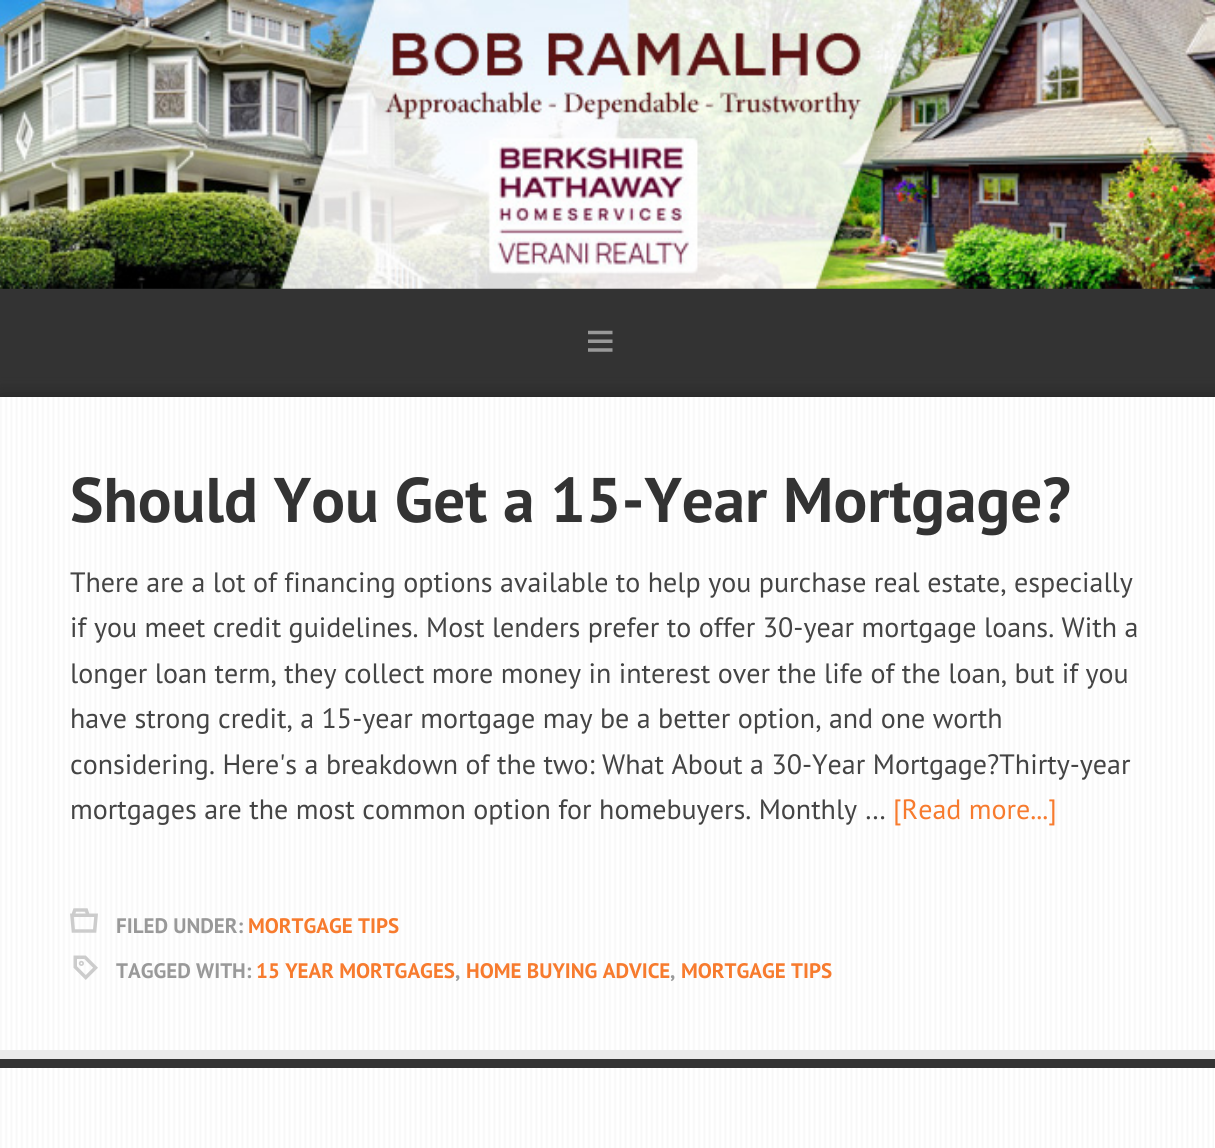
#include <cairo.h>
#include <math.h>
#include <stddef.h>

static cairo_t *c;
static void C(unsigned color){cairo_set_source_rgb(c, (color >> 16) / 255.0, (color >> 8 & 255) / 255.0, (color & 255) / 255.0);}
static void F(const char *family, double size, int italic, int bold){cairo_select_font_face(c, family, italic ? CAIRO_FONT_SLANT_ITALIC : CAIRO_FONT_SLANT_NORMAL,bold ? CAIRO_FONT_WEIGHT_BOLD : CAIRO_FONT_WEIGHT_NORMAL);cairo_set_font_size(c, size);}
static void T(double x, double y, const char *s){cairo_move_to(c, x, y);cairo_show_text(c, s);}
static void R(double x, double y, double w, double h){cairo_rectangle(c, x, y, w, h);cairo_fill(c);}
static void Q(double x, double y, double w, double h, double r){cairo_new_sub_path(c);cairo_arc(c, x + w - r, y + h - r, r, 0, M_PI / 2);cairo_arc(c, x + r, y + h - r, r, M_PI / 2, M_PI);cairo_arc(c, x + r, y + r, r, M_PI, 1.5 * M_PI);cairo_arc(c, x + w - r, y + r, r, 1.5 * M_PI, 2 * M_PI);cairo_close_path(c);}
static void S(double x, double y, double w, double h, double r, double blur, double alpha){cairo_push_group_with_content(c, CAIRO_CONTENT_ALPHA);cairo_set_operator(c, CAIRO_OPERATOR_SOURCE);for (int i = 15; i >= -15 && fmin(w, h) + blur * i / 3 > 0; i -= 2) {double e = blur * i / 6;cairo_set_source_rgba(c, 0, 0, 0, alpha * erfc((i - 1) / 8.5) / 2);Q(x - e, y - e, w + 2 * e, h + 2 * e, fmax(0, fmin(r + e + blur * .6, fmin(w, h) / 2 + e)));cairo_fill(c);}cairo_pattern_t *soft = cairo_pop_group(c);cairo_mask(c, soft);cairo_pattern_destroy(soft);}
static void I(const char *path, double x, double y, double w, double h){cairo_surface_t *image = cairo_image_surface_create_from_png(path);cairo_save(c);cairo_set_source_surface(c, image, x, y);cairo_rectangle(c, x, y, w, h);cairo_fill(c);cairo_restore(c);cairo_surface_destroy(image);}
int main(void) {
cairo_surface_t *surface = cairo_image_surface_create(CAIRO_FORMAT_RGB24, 1215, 1148);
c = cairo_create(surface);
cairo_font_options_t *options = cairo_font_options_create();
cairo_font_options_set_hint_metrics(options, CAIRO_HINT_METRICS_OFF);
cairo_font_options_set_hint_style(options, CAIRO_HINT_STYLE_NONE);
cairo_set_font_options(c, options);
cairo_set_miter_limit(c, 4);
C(0xffffff);
cairo_paint(c);
I("1.png",0,288,1215,1);
C(0x222222);
S(0,0,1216,289,0,9,1);
I("2.png",11,288,1203,1);
I("3.png",0,0,1215,289);
C(0x333333);
R(0,289,1215,108);
I("4.png",588,330,25,22);
C(0x222222);
S(0,397,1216,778,0,9,1);
C(0xffffff);
R(0,397,1215,653);
I("5.png",0,397,1214,653);
C(0xeaeaea);
R(0,1050,1215,9);
C(0x333333);
R(0,1059,1215,9);
F("PT Sans",63,0,1);
T(70,522,"Should You Get a 15-Year Mortgage?");
F("PT Sans",28,0,0);
C(0x444444);
T(70,592,"There are a lot of financing options available to help you purchase real estate, especially");
T(70,637,"if you meet credit guidelines. Most lenders prefer to offer 30-year mortgage loans. With a");
T(70,683,"longer loan term, they collect more money in interest over the life of the loan, but if you");
T(70,728,"have strong credit, a 15-year mortgage may be a better option, and one worth");
T(70,774,"considering. Here's a breakdown of the two: What About a 30-Year Mortgage?Thirty-year");
T(70,819,"mortgages are the most common option for homebuyers. Monthly …");
C(0xf77b2e);
T(893,819,"[Read more...]");
I("6.png",70,908,28,25);
F("PT Sans",21,0,1);
C(0x999999);
T(116,933,"FILED UNDER:");
C(0xf77b2e);
T(248,933,"MORTGAGE TIPS");
I("7.png",73,955,25,25);
C(0x999999);
T(116,978,"TAGGED WITH:");
C(0xf77b2e);
T(256,978,"15 YEAR MORTGAGES");
C(0x999999);
T(455,978,",");
C(0xf77b2e);
T(466,978,"HOME BUYING ADVICE");
C(0x999999);
T(670,978,",");
C(0xf77b2e);
T(681,978,"MORTGAGE TIPS");
C(0xffffff);
R(0,1068,1215,80);
I("8.png",0,1068,1214,80);
cairo_surface_write_to_png(surface, "o.png");
cairo_font_options_destroy(options);
cairo_destroy(c);
cairo_surface_destroy(surface);
return 0;
}
